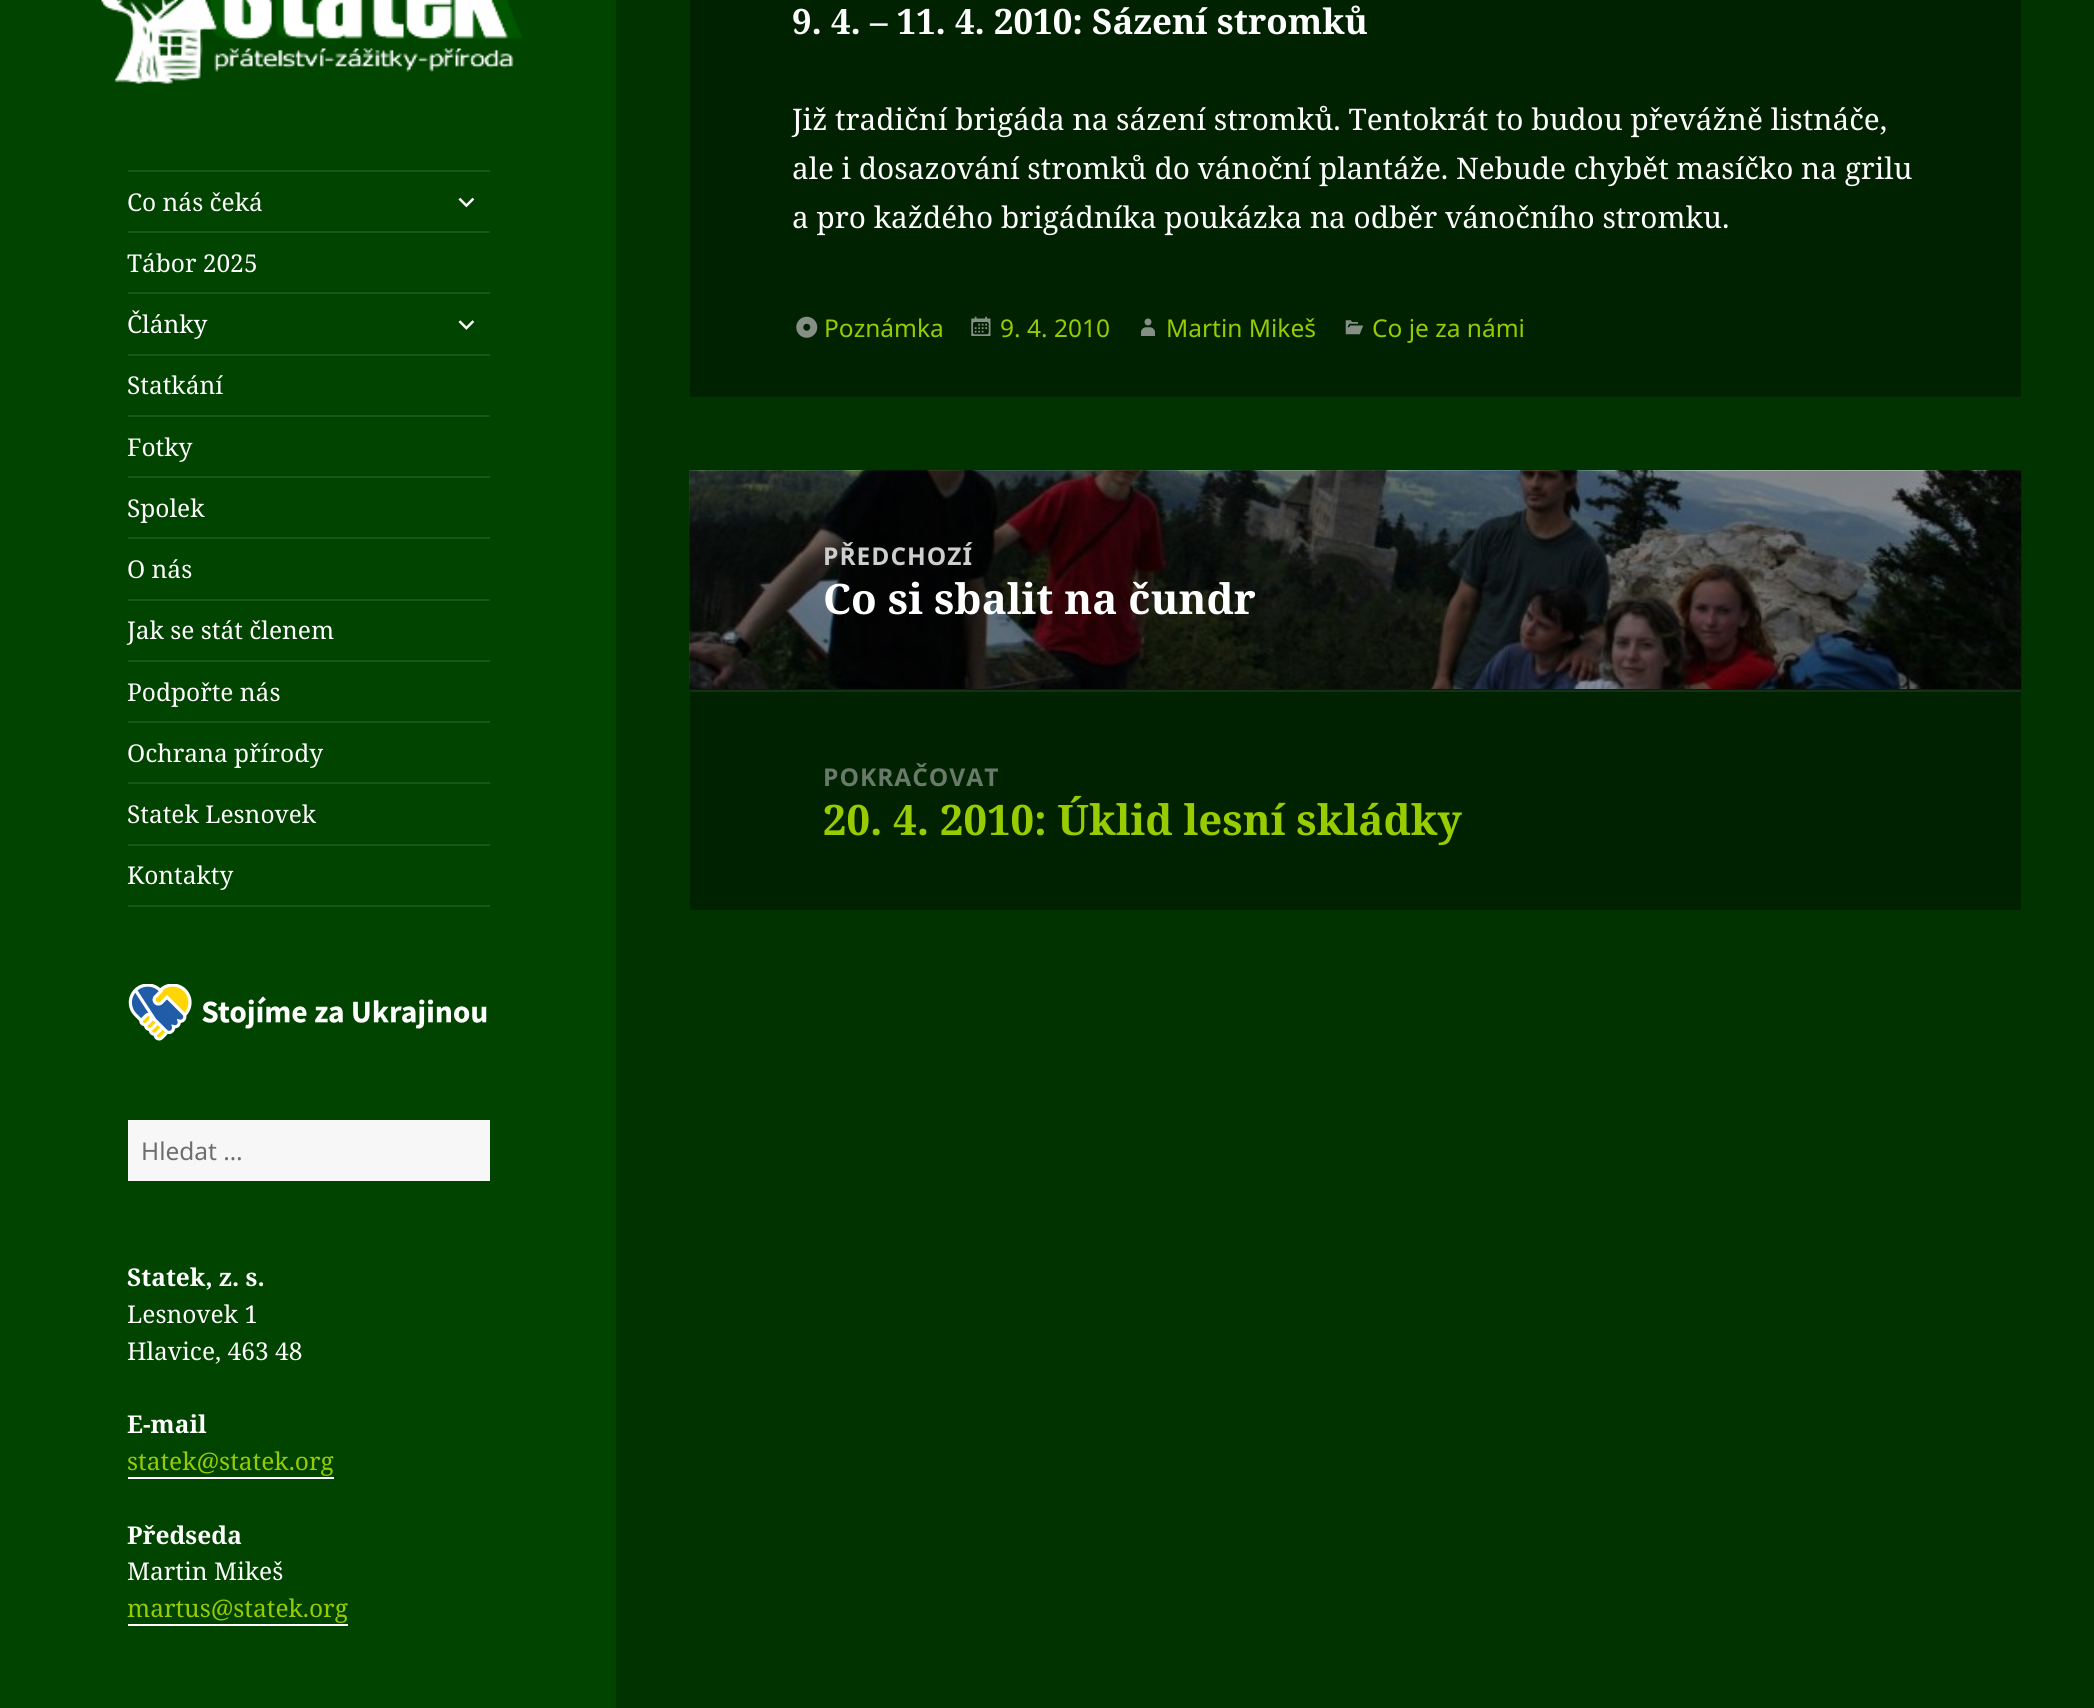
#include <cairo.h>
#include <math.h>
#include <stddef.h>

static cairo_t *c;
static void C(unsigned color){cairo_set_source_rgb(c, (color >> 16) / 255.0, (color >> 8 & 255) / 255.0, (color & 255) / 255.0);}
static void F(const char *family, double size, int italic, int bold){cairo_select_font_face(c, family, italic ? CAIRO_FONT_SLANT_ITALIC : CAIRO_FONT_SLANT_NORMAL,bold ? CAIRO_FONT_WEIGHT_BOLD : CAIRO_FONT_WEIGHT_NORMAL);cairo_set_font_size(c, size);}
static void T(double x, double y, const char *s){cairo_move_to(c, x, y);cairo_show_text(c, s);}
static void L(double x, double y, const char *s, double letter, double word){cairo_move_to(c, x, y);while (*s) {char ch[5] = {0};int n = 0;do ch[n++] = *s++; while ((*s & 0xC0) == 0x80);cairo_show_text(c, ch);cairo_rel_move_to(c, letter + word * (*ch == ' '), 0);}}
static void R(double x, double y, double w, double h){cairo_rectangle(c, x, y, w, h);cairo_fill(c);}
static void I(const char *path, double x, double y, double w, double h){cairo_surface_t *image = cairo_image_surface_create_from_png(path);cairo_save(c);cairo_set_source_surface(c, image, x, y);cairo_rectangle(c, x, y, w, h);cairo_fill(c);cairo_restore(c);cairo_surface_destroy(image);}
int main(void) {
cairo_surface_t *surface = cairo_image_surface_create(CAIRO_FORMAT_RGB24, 2094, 1708);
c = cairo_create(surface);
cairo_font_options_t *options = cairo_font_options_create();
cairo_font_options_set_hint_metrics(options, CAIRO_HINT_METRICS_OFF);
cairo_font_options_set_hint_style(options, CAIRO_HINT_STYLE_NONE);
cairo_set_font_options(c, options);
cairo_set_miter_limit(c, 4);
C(0x003300);
cairo_paint(c);
C(0x004400);
R(0,0,616,1708);
I("1.png",101,0,422,84);
C(0x195719);
R(128,170,362,2);
R(128,905,362,2);
F("Noto Serif",24.5,0,0);
C(0xffffff);
T(127,211,"Co nás čeká");
I("2.png",458,197,17,11);
C(0x195719);
R(128,231,362,2);
C(0xffffff);
T(127,272,"Tábor 2025");
C(0x195719);
R(128,292,362,2);
C(0xffffff);
T(127,333,"Články");
I("3.png",458,320,17,10);
C(0x195719);
R(128,354,362,2);
C(0xffffff);
T(127,394,"Statkání");
C(0x195719);
R(128,415,362,2);
C(0xffffff);
T(127,456,"Fotky");
C(0x195719);
R(128,476,362,2);
C(0xffffff);
T(127,517,"Spolek");
C(0x195719);
R(128,537,362,2);
C(0xffffff);
T(127,578,"O nás");
C(0x195719);
R(128,599,362,2);
C(0xffffff);
T(127,639,"Jak se stát členem");
C(0x195719);
R(128,660,362,2);
C(0xffffff);
T(127,701,"Podpořte nás");
C(0x195719);
R(128,721,362,2);
C(0xffffff);
T(127,762,"Ochrana přírody");
C(0x195719);
R(128,782,362,2);
C(0xffffff);
T(127,823,"Statek Lesnovek");
C(0x195719);
R(128,844,362,2);
C(0xffffff);
T(127,884,"Kontakty");
I("4.png",128,984,359,57);
C(0xf7f7f7);
R(128,1120,362,61);
F("Noto Sans",24.5,0,0);
C(0x6e6e6e);
T(141,1160,"Hledat …");
F("Noto Serif",24.5,0,1);
C(0xffffff);
T(127,1286,"Statek, z. s.");
F("Noto Serif",24.5,0,0);
T(127,1323,"Lesnovek 1");
T(127,1360,"Hlavice, 463 48");
F("Noto Serif",24.5,0,1);
T(127,1433,"E-mail");
F("Noto Serif",24.5,0,0);
C(0x99cc00);
T(127,1470,"statek@statek.org");
C(0xfefffe);
R(128,1477,206,2);
F("Noto Serif",24.5,0,1);
C(0xffffff);
T(127,1544,"Předseda");
F("Noto Serif",24.5,0,0);
T(127,1580,"Martin Mikeš");
C(0x99cc00);
T(127,1617,"martus@statek.org");
C(0xfefffe);
R(128,1624,220,2);
C(0x002200);
R(690,0,1331,397);
F("Noto Serif",35,0,1);
C(0xffffff);
T(792,34,"9. 4. – 11. 4. 2010: Sázení stromků");
F("Noto Serif",29.75,0,0);
T(792,130,"Již tradiční brigáda na sázení stromků. Tentokrát to budou převážně listnáče,");
T(792,179,"ale i dosazování stromků do vánoční plantáže. Nebude chybět masíčko na grilu");
T(792,228,"a pro každého brigádníka poukázka na odběr vánočního stromku.");
I("5.png",796,316,22,22);
F("Noto Sans",24.5,0,0);
C(0x99cc00);
T(824,337,"Poznámka");
I("6.png",971,316,20,20);
T(1000,337,"9. 4. 2010");
I("7.png",1141,318,14,18);
T(1166,337,"Martin Mikeš");
I("8.png",1345,320,19,15);
T(1372,337,"Co je za námi");
C(0x002200);
R(690,689,1331,221);
I("9.png",689,470,1333,219);
F("Noto Sans",24.5,0,1);
C(0xcdcecd);
L(823,565,"PŘEDCHOZÍ",1,0);
F("Noto Serif",42,0,1);
C(0xffffff);
T(823,614,"Co si sbalit na čundr");
C(0x133213);
R(690,690,1331,2);
F("Noto Sans",24.5,0,1);
C(0x6a7a6a);
L(823,786,"POKRAČOVAT",1,0);
F("Noto Serif",42,0,1);
C(0x99cc00);
T(823,835,"20. 4. 2010: Úklid lesní skládky");
cairo_surface_write_to_png(surface, "o.png");
cairo_font_options_destroy(options);
cairo_destroy(c);
cairo_surface_destroy(surface);
return 0;
}
